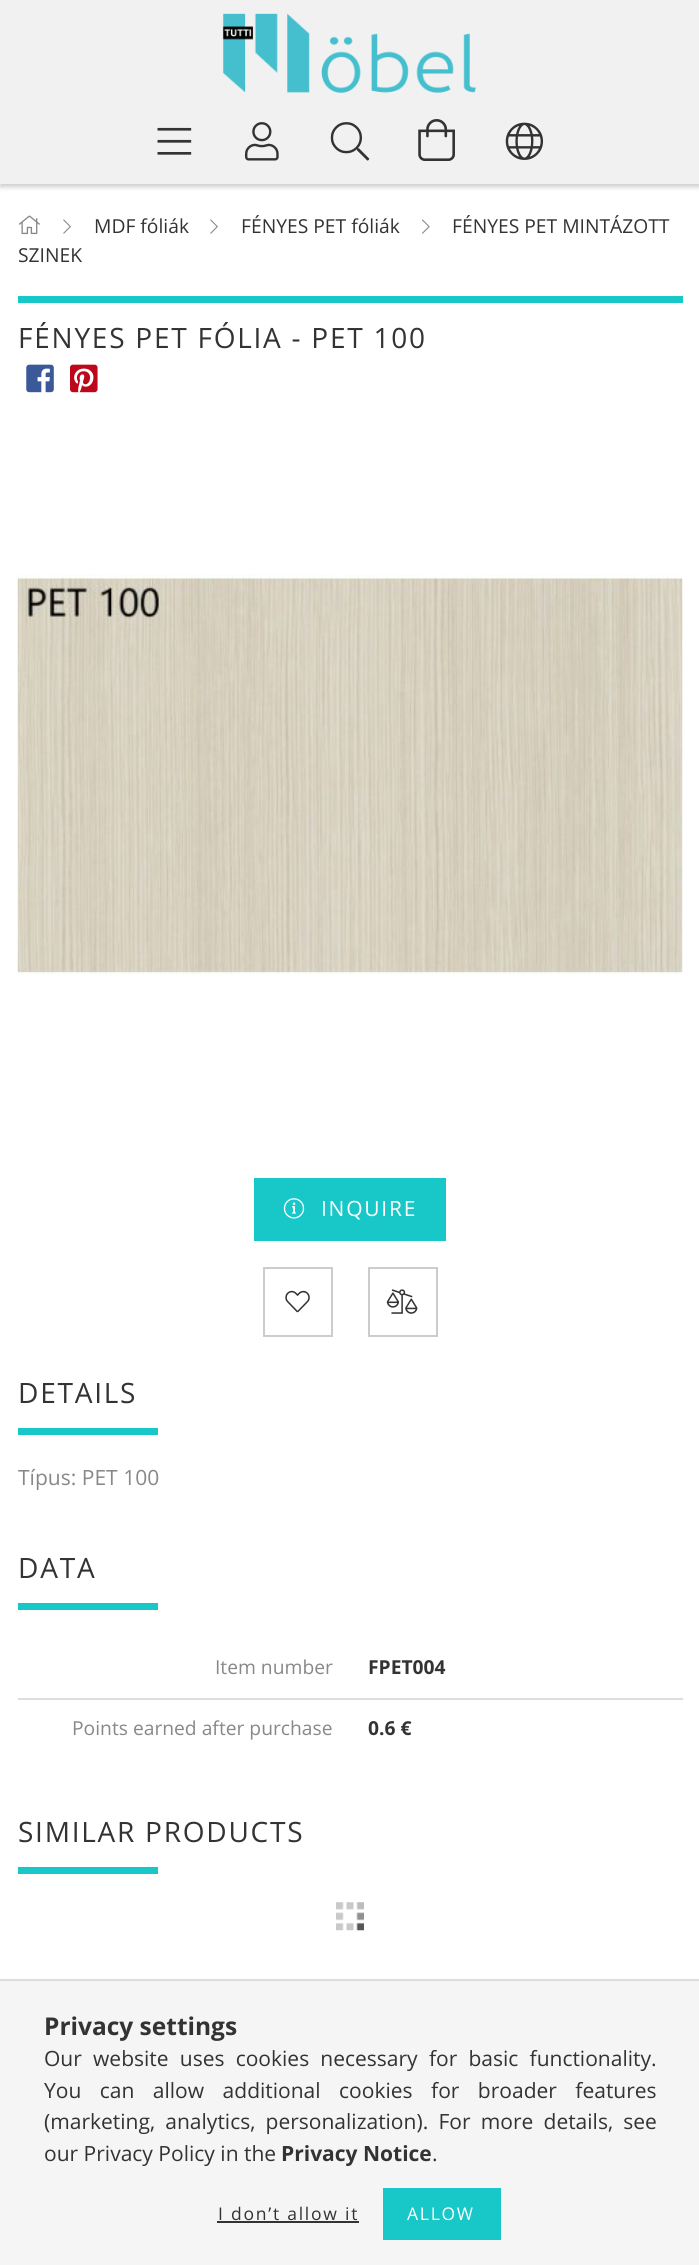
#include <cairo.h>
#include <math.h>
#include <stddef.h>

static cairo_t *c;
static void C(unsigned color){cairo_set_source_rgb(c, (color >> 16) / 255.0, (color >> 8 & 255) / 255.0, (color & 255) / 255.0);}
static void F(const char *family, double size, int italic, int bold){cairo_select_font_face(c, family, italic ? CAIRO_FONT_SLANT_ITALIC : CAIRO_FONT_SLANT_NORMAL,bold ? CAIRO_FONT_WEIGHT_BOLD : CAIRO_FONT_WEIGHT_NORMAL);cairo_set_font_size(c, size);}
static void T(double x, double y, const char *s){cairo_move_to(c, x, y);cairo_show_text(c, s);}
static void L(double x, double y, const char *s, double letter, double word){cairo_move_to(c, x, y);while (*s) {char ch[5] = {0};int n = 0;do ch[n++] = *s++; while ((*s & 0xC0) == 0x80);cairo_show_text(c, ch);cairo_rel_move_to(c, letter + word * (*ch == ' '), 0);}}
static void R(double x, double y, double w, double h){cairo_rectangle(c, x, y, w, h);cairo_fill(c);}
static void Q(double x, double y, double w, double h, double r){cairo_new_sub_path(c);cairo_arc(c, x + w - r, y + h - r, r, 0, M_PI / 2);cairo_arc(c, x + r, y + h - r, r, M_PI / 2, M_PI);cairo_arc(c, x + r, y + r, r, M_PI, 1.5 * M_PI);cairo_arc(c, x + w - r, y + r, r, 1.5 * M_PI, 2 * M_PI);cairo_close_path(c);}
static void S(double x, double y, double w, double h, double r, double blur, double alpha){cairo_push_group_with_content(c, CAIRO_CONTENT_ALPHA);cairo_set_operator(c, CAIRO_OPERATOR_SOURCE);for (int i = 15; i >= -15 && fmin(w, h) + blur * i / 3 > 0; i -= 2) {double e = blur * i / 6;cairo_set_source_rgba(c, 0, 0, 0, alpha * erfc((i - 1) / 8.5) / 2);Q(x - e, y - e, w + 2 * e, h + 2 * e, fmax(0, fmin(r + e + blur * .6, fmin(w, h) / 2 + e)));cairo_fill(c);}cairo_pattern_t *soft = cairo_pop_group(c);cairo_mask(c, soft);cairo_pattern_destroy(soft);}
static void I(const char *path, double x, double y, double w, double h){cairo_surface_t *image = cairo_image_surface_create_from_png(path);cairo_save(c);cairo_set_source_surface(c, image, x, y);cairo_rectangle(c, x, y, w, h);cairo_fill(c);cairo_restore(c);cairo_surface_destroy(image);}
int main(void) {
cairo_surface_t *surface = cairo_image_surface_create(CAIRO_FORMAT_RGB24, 699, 2265);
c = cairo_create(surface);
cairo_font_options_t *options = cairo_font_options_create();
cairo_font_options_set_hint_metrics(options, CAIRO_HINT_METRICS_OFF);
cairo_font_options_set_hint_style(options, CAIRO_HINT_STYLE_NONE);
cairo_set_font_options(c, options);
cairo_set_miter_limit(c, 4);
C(0xffffff);
cairo_paint(c);
C(0x000000);
S(0,4,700,183,0,2.5,.2);
C(0xf1f1f1);
R(0,0,699,184);
I("1.png",222,13,254,80);
I("2.png",157,127,35,28);
I("3.png",245,122,34,39);
I("4.png",330,122,40,39);
I("5.png",418,119,37,42);
I("6.png",505,122,39,38);
I("7.png",18,215,22,20);
I("8.png",63,219,8,15);
F("Open Sans",19.25,0,0);
C(0x333333);
T(94,233,"MDF fóliák");
I("8.png",210,219,8,15);
T(241,233,"FÉNYES PET fóliák");
I("9.png",422,219,8,15);
T(452,233,"FÉNYES PET MINTÁZOTT");
T(18,262,"SZINEK");
C(0x18c7c7);
R(18,296,665,7);
cairo_save(c);
cairo_rectangle(c,18,322,665,33);
cairo_clip(c);
F("Open Sans",28,0,0);
C(0x333333);
L(18,348,"FÉNYES PET FÓLIA - PET 100",1.75,0);
cairo_restore(c);
I("10.png",26,364,28,29);
I("11.png",70,364,28,29);
I("12.png",17,574,666,401);
R(254,1178,192,63);
I("13.png",283,1198,22,21);
F("Open Sans",21,0,0);
C(0xffffff);
L(321,1216,"INQUIRE",1.75,0);
cairo_rectangle(c,264,1268,68,68);
C(0xcccccc);
cairo_stroke(c);
I("14.png",285,1290,25,23);
cairo_rectangle(c,369,1268,68,68);
cairo_stroke(c);
I("15.png",386,1289,32,25);
F("Open Sans",28,0,0);
C(0x333333);
L(18,1403,"DETAILS",1.75,0);
C(0x18c7c7);
R(18,1428,140,7);
F("Open Sans",21,0,0);
C(0x888888);
T(18,1485,"Típus: PET 100");
F("Open Sans",28,0,0);
C(0x333333);
L(18,1578,"DATA",1.75,0);
C(0x18c7c7);
R(18,1603,140,7);
F("Open Sans",19.25,0,0);
C(0x888888);
T(215,1674,"Item number");
F("Open Sans",19.25,0,1);
C(0x333333);
T(368,1674,"FPET004");
C(0xdddddd);
R(18,1698,665,2);
F("Open Sans",19.25,0,0);
C(0x888888);
T(72,1735,"Points earned after purchase");
F("Open Sans",19.25,0,1);
C(0x333333);
T(368,1735,"0.6 €");
F("Open Sans",28,0,0);
L(18,1842,"SIMILAR PRODUCTS",1.75,0);
C(0x18c7c7);
R(18,1867,140,7);
I("16.png",336,1902,28,29);
C(0xf5f5f5);
R(0,1981,699,284);
C(0xdddddd);
R(0,1979,699,2);
F("Open Sans",24.5,0,1);
C(0x333333);
T(44,2035,"Privacy settings");
F("Open Sans",21,0,0);
L(44,2066,"Our website uses cookies necessary for basic functionality.",0,5.75);
L(44,2098,"You can allow additional cookies for broader features",0,13);
L(44,2129,"(marketing, analytics, personalization). For more details, see",0,4.75);
T(44,2161,"our Privacy Policy in the");
F("Open Sans",21,0,1);
T(281,2161,"Privacy Notice");
F("Open Sans",21,0,0);
T(432,2161,".");
F("Open Sans",17.5,0,0);
L(218,2220,"I don’t allow it",1.75,0);
R(217,2221,142,2);
C(0x18c7c7);
R(383,2188,118,52);
C(0xffffff);
L(407,2220,"ALLOW",1.75,0);
cairo_surface_write_to_png(surface, "o.png");
cairo_font_options_destroy(options);
cairo_destroy(c);
cairo_surface_destroy(surface);
return 0;
}
